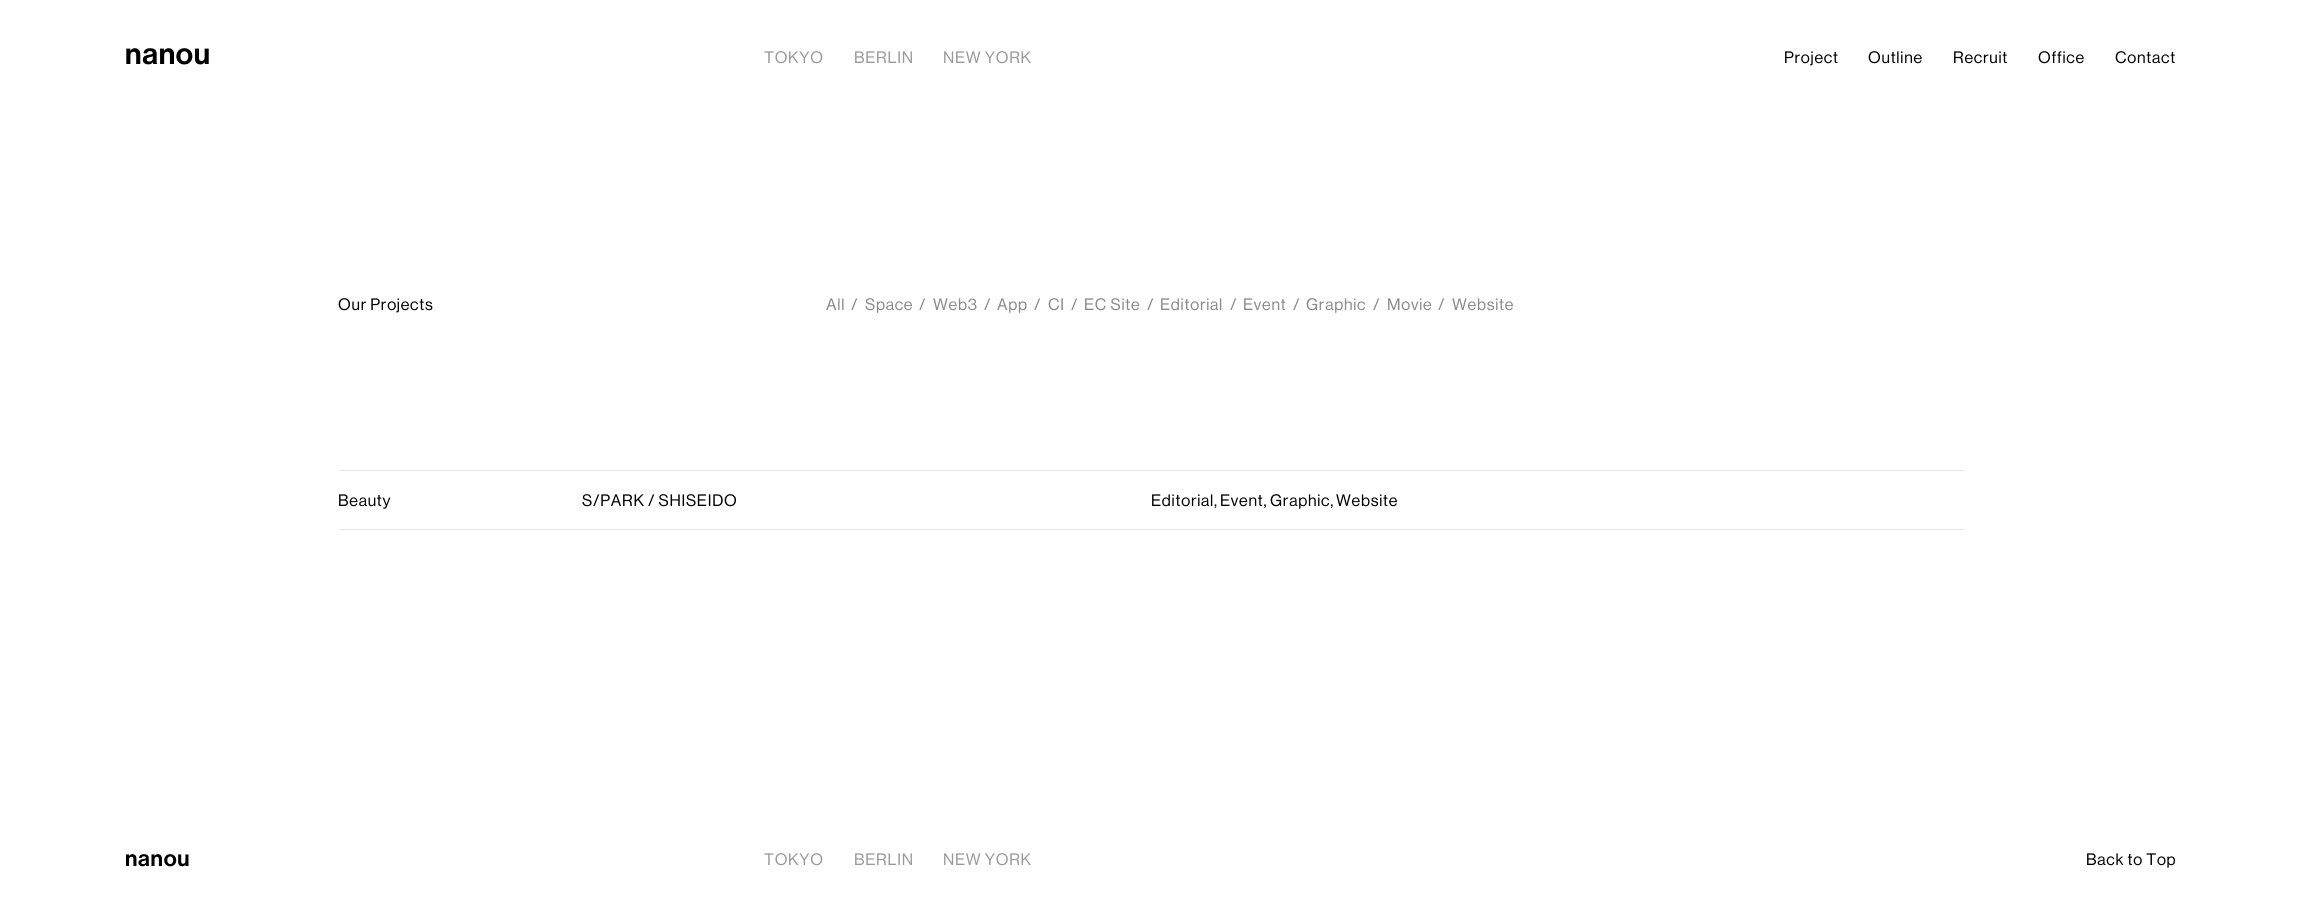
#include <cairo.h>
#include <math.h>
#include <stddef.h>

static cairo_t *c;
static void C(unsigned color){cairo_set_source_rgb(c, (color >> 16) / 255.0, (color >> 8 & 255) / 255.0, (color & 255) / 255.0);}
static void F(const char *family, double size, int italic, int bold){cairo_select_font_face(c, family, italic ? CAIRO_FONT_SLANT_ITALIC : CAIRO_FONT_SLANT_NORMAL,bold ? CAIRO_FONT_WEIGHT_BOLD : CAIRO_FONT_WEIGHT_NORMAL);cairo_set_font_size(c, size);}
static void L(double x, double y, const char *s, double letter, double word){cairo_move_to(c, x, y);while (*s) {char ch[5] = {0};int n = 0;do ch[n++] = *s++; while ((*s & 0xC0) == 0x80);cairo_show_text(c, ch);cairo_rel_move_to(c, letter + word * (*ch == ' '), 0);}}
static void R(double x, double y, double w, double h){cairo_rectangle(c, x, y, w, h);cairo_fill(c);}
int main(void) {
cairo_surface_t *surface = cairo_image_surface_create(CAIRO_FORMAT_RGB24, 2301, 915);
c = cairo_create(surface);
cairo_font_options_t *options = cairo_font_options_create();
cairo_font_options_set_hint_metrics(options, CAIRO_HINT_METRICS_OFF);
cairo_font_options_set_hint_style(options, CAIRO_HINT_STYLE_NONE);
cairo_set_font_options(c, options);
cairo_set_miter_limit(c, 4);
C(0xffffff);
cairo_paint(c);
F("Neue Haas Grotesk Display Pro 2 Medium",30,0,0);
C(0x000000);
L(125,64,"nanou",.75,0);
F("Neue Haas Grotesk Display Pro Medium",16.25,0,0);
C(0x999999);
L(764,63,"TOKYO",.75,0);
L(854,63,"BERLIN",.75,0);
L(943,63,"NEW YORK",.75,0);
C(0x000000);
L(1784,63,"Project",.75,0);
L(1868,63,"Outline",.75,0);
L(1953,63,"Recruit",.75,0);
L(2038,63,"Office",.75,0);
L(2115,63,"Contact",.75,0);
L(338,310,"Our Projects",.75,0);
C(0x898989);
L(826,310,"All",.75,0);
L(851,310,"/",.75,0);
L(865,310,"Space",.75,0);
L(919,310,"/",.75,0);
L(933,310,"Web3",.75,0);
L(984,310,"/",.75,0);
L(997,310,"App",.75,0);
L(1034,310,"/",.75,0);
L(1048,310,"CI",.75,0);
L(1071,310,"/",.75,0);
L(1084,310,"EC Site",.75,0);
L(1147,310,"/",.75,0);
L(1160,310,"Editorial",.75,0);
L(1230,310,"/",.75,0);
L(1243,310,"Event",.75,0);
L(1293,310,"/",.75,0);
L(1306,310,"Graphic",.75,0);
L(1373,310,"/",.75,0);
L(1387,310,"Movie",.75,0);
L(1438,310,"/",.75,0);
L(1452,310,"Website",.75,0);
C(0xe5e5e5);
R(339,470,1625,1);
R(339,529,1625,1);
C(0x000000);
L(338,506,"Beauty",.75,0);
L(582,506,"S/PARK / SHISEIDO",.75,0);
L(1151,506,"Editorial,",.75,0);
L(1220,506,"Event,",.75,0);
L(1270,506,"Graphic,",.75,0);
L(1336,506,"Website",.75,0);
F("Neue Haas Grotesk Display Pro 2 Medium",22.5,0,0);
L(125,866,"nanou",.75,0);
F("Neue Haas Grotesk Display Pro Medium",16.25,0,0);
C(0x999999);
L(764,865,"TOKYO",.75,0);
L(854,865,"BERLIN",.75,0);
L(943,865,"NEW YORK",.75,0);
C(0x000000);
L(2086,865,"Back to Top",.75,0);
cairo_surface_write_to_png(surface, "o.png");
cairo_font_options_destroy(options);
cairo_destroy(c);
cairo_surface_destroy(surface);
return 0;
}
